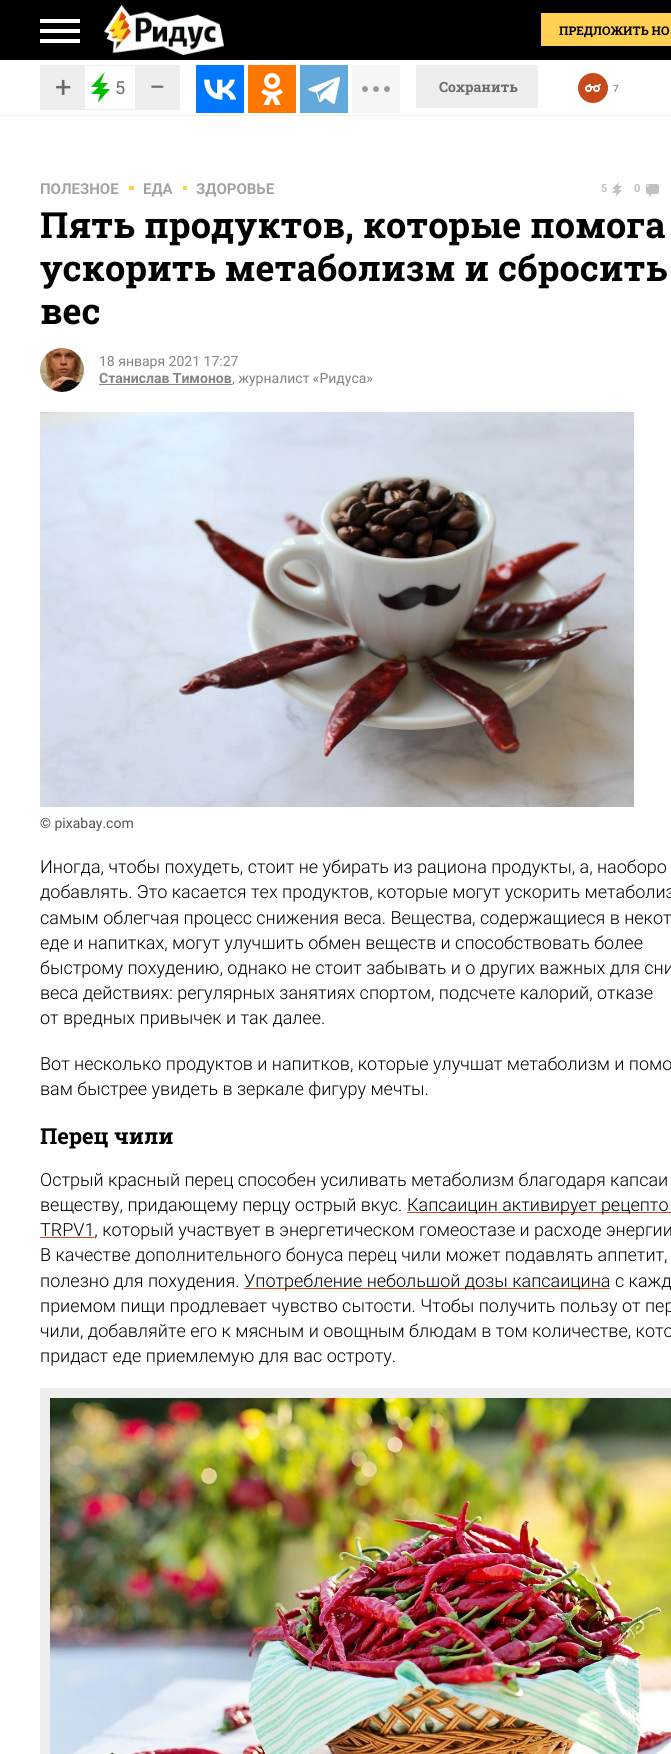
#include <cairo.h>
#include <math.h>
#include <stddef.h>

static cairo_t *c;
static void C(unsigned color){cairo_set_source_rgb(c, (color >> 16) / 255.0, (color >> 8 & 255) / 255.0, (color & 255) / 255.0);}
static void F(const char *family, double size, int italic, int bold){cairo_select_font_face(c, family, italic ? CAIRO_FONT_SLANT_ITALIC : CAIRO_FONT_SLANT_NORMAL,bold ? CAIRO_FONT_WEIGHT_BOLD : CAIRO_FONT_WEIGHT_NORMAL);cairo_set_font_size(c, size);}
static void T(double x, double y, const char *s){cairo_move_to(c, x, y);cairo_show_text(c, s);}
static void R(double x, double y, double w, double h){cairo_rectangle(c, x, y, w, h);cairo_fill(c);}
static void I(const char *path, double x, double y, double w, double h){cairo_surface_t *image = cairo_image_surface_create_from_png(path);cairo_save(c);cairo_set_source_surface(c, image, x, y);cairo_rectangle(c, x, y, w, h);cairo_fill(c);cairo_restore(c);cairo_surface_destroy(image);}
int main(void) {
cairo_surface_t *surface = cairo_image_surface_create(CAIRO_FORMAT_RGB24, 671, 1754);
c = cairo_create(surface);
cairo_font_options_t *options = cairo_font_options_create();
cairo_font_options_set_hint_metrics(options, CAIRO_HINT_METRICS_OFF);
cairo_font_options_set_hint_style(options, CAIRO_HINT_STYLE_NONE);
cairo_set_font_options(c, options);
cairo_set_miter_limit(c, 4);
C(0xffffff);
cairo_paint(c);
C(0x000000);
R(0,0,671,60);
C(0xffffff);
R(40,19,40,4);
R(40,29,40,4);
R(40,39,40,4);
I("1.png",104,5,120,50);
C(0xffd051);
R(541,13,130,33);
F("Roboto Slab",12,0,1);
C(0x000000);
T(559,35,"ПРЕДЛОЖИТЬ НО");
C(0xeeeeee);
R(0,115,671,1);
cairo_rectangle(c,40.5,65.5,139,44);
cairo_set_line_width(c,1);
cairo_stroke(c);
R(41,66,44,43);
F("Roboto",29,0,0);
C(0x686b6f);
T(55,97,"+");
I("2.png",91,72,19,31);
F("Roboto",18,0,0);
T(115,94,"5");
C(0xeeeeee);
R(135,66,44,43);
F("Roboto",29,0,0);
C(0x686b6f);
T(149,97,"−");
C(0x0077ff);
R(196,65,48,48);
I("3.png",204,79,33,21);
C(0xff7700);
R(248,65,48,48);
I("4.png",261,73,22,32);
C(0x64a9dc);
R(300,65,48,48);
I("5.png",308,77,32,27);
C(0xf7f7f7);
R(352,65,48,48);
I("6.png",362,86,28,6);
C(0xeeeeee);
R(416,65,122,43);
F("Roboto Slab",14,0,1);
C(0x686b6f);
T(439,92,"Сохранить");
C(0xc64a1b);
cairo_new_path(c);
cairo_arc(c,593,88,15,0,2 * M_PI);
cairo_fill(c);
I("7.png",585,84,16,8);
F("Roboto",10,0,0);
C(0x686b6f);
T(613,92,"7");
F("Roboto",15,0,1);
C(0xa3a3a3);
T(40,194,"ПОЛЕЗНОЕ");
C(0xffd051);
R(129,186,5,4);
C(0xa3a3a3);
T(143,194,"ЕДА");
C(0xffd051);
R(183,186,4,4);
C(0xa3a3a3);
T(196,194,"ЗДОРОВЬЕ");
F("Roboto",11,0,1);
C(0xc1c1c1);
T(601,192,"5");
I("8.png",612,182,10,15);
T(634,192,"0");
I("9.png",646,184,13,13);
F("Roboto Slab",36,0,1);
C(0x000000);
T(40,238,"Пять продуктов, которые помога");
T(40,281,"ускорить метаболизм и сбросить");
T(40,324,"вес");
I("10.png",40,348,44,44);
F("Roboto",14,0,0);
C(0x848484);
T(99,366,"18 января 2021 17:27");
F("Roboto",14,0,1);
T(99,383,"Станислав Тимонов");
R(99,384,133,1);
F("Roboto",14,0,0);
T(232,383,", журналист «Ридуса»");
I("11.png",40,412,594,395);
C(0x525252);
T(40,828,"© pixabay.com");
F("Roboto Light",18,0,0);
C(0x000000);
T(40,873,"Иногда, чтобы похудеть, стоит не убирать из рациона продукты, а, наоборо");
T(40,898,"добавлять. Это касается тех продуктов, которые могут ускорить метаболиз");
T(40,924,"самым облегчая процесс снижения веса. Вещества, содержащиеся в некот");
T(40,949,"еде и напитках, могут улучшить обмен веществ и способствовать более");
T(40,974,"быстрому похудению, однако не стоит забывать и о других важных для сни");
T(40,999,"веса действиях: регулярных занятиях спортом, подсчете калорий, отказе");
T(40,1024,"от вредных привычек и так далее.");
T(40,1070,"Вот несколько продуктов и напитков, которые улучшат метаболизм и помо");
T(40,1095,"вам быстрее увидеть в зеркале фигуру мечты.");
F("Roboto Slab",22,0,1);
T(40,1144,"Перец чили");
F("Roboto Light",18,0,0);
T(40,1186,"Острый красный перец способен усиливать метаболизм благодаря капсаи");
T(40,1211,"веществу, придающему перцу острый вкус.");
C(0xc64a1b);
R(407,1212,264,1);
C(0x000000);
T(407,1211,"Капсаицин активирует рецепто");
C(0xc64a1b);
R(40,1237,54,1);
C(0x000000);
T(40,1236,"TRPV1, который участвует в энергетическом гомеостазе и расходе энергии");
T(40,1261,"В качестве дополнительного бонуса перец чили может подавлять аппетит,");
T(40,1287,"полезно для похудения.");
C(0xc64a1b);
R(244,1288,366,1);
C(0x000000);
T(244,1287,"Употребление небольшой дозы капсаицина с кажд");
T(40,1312,"приемом пищи продлевает чувство сытости. Чтобы получить пользу от пер");
T(40,1337,"чили, добавляйте его к мясным и овощным блюдам в том количестве, кото");
T(40,1362,"придаст еде приемлемую для вас остроту.");
C(0xeeeeee);
R(40,1388,631,366);
I("12.png",50,1398,621,356);
cairo_surface_write_to_png(surface, "o.png");
cairo_font_options_destroy(options);
cairo_destroy(c);
cairo_surface_destroy(surface);
return 0;
}
